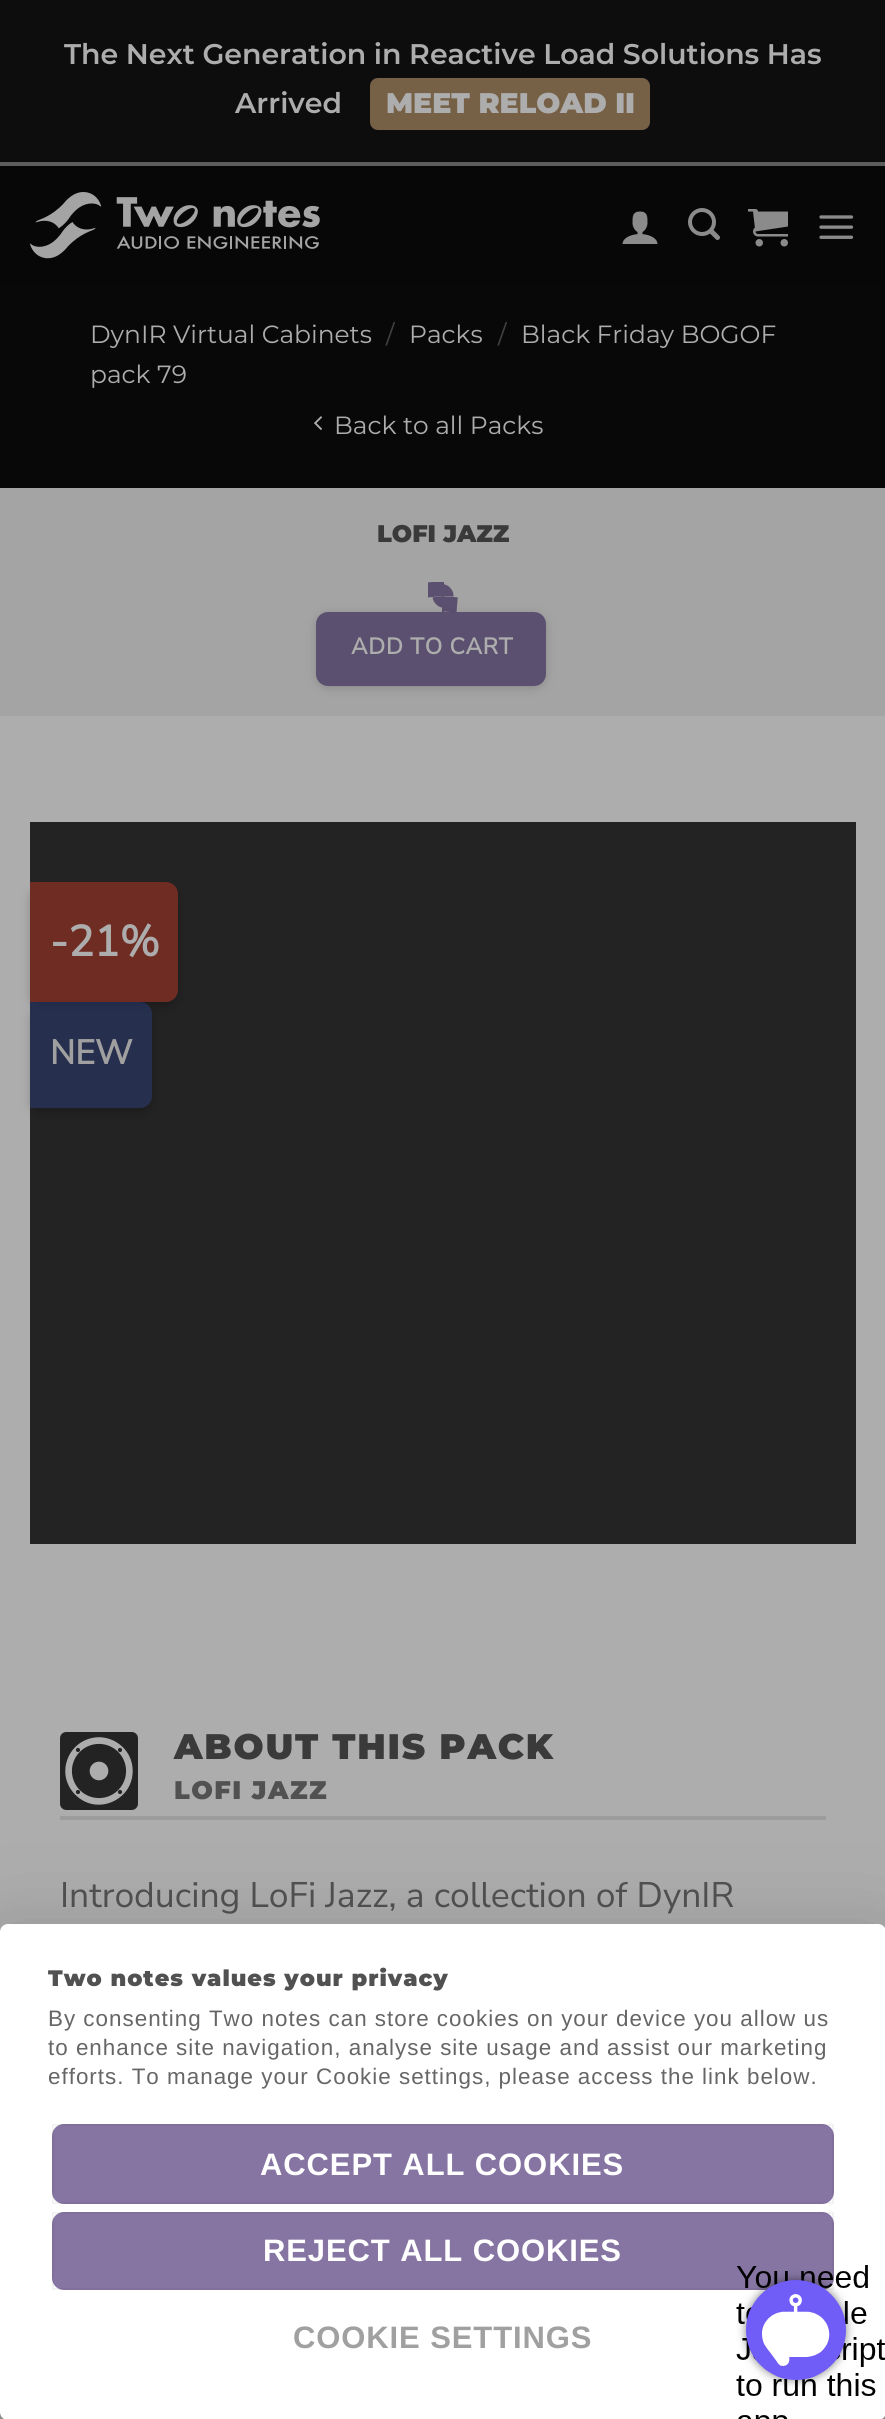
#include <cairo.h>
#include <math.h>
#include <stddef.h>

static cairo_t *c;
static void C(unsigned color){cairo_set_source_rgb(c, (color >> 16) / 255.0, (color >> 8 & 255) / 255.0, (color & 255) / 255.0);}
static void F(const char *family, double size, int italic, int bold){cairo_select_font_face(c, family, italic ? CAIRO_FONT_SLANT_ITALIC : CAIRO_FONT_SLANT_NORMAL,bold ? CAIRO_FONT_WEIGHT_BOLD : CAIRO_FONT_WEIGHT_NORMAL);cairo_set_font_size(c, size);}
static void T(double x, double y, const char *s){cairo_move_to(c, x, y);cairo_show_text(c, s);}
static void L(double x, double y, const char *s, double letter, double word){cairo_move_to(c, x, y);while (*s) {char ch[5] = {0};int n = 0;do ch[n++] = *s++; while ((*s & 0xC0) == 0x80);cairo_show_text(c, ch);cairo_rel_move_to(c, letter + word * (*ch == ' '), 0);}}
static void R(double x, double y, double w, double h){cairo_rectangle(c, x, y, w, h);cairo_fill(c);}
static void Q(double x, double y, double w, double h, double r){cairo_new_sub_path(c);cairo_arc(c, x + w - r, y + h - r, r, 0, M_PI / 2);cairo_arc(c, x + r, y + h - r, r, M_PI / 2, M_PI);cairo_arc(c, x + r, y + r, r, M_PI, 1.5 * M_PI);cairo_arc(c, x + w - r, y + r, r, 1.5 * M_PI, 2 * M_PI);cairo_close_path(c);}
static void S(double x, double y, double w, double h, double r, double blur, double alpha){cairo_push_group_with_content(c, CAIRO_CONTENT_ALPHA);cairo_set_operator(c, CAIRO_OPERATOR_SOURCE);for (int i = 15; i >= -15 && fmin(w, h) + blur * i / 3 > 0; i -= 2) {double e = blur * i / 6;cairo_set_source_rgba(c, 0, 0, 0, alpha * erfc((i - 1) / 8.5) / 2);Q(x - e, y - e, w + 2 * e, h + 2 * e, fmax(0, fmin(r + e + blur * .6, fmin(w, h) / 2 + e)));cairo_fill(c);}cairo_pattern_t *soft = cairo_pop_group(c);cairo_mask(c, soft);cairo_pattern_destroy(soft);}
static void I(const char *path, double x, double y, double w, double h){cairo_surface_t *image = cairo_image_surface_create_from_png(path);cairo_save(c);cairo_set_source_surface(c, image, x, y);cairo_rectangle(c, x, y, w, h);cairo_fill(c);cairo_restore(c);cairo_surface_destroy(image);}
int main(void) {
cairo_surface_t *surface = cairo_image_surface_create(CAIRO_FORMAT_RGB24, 885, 2419);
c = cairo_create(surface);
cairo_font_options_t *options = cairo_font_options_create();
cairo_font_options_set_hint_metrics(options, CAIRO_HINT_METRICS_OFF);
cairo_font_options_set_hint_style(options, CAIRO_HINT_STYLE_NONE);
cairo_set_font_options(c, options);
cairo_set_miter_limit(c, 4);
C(0x0d0d0d);
cairo_paint(c);
C(0x5c5c5c);
R(0,162,885,4);
F("Montserrat SemiBold",28.4,0,0);
C(0xadadad);
L(64,64,"The Next Generation in Reactive Load Solutions Has",0,-.25);
T(235,113,"Arrived");
C(0x766147);
Q(370,78,280,52,8);
cairo_fill(c);
F("Montserrat Black",28.4,0,0);
C(0xadadad);
T(386,113,"MEET RELOAD II");
C(0x070707);
R(0,166,885,118);
I("1.png",30,192,290,67);
I("2.png",622,211,36,33);
I("3.png",688,208,32,32);
I("4.png",748,209,40,38);
I("5.png",819,215,35,24);
C(0x080808);
R(0,284,885,204);
F("Montserrat",24.9,0,0);
C(0xadadad);
T(90,343,"DynIR Virtual Cabinets");
C(0x424242);
T(386,343,"/");
C(0xadadad);
T(409,343,"Packs");
C(0x424242);
T(498,343,"/");
C(0xadadad);
T(521,343,"Black Friday BOGOF");
T(90,383,"pack 79");
I("6.png",314,416,8,14);
T(334,434,"Back to all Packs");
C(0xa4a4a4);
R(0,488,885,228);
F("Montserrat Black",24,0,0);
C(0x3a3a3a);
T(377,542,"LOFI JAZZ");
cairo_save(c);
cairo_rectangle(c,428,582,14,30);
cairo_clip(c);
cairo_new_path(c);
cairo_move_to(c,429.5,612.5);
cairo_line_to(c,426.5,582.5);
cairo_line_to(c,456.5,580);
cairo_line_to(c,459,610);
cairo_close_path(c);
cairo_clip(c);
cairo_new_path(c);
cairo_move_to(c,432.5,597);
cairo_curve_to(c,431,582,454,580,455.5,595);
C(0x5b506f);
cairo_set_line_width(c,46.2);
cairo_stroke(c);
cairo_restore(c);
cairo_save(c);
cairo_rectangle(c,442,582,2,30);
cairo_clip(c);
cairo_new_path(c);
cairo_move_to(c,444.5,607);
cairo_curve_to(c,429.5,607,429.5,584,444.5,584);
C(0x5b506f);
cairo_set_line_width(c,46.2);
cairo_stroke(c);
cairo_restore(c);
cairo_save(c);
cairo_rectangle(c,442,582,16,30);
cairo_clip(c);
cairo_new_path(c);
cairo_move_to(c,459,582.5);
cairo_line_to(c,456.5,612.5);
cairo_line_to(c,426.5,610);
cairo_line_to(c,429.5,580);
cairo_close_path(c);
cairo_clip(c);
cairo_new_path(c);
cairo_move_to(c,453.5,597);
cairo_curve_to(c,452.5,612,429.5,610,430.5,595);
C(0x5b506f);
cairo_set_line_width(c,46.2);
cairo_stroke(c);
cairo_restore(c);
C(0x232323);
S(316,614,230,74,12,5,.2);
C(0x5b506f);
Q(316,612,230,74,12);
cairo_fill(c);
F("Nunito Sans",22.75,0,1);
C(0xadadad);
L(351,654,"ADD TO CART",.75,0);
R(0,716,885,1703);
C(0x232323);
R(30,822,826,722);
cairo_save(c);
cairo_set_fill_rule(c,CAIRO_FILL_RULE_EVEN_ODD);
cairo_new_path(c);
cairo_move_to(c,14,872);
cairo_line_to(c,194,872);
cairo_line_to(c,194,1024);
cairo_line_to(c,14,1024);
cairo_close_path(c);
cairo_move_to(c,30,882);
cairo_line_to(c,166,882);
cairo_curve_to(c,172.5,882,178,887.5,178,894);
cairo_line_to(c,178,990);
cairo_curve_to(c,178,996.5,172.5,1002,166,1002);
cairo_line_to(c,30,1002);
cairo_close_path(c);
cairo_clip(c);
C(0x000000);
S(30,888,148,120,12,5,.2);
cairo_restore(c);
cairo_set_source_rgba(c,0.635,0.196,0.137,0.6);
cairo_new_path(c);
cairo_move_to(c,30,882);
cairo_line_to(c,166,882);
cairo_curve_to(c,172.5,882,178,887.5,178,894);
cairo_line_to(c,178,990);
cairo_curve_to(c,178,996.5,172.5,1002,166,1002);
cairo_line_to(c,30,1002);
cairo_close_path(c);
cairo_fill(c);
F("Nunito Sans",43,0,1);
C(0xadadad);
T(50,956,"-21%");
cairo_save(c);
cairo_set_fill_rule(c,CAIRO_FILL_RULE_EVEN_ODD);
cairo_new_path(c);
cairo_move_to(c,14,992);
cairo_line_to(c,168,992);
cairo_line_to(c,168,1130);
cairo_line_to(c,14,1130);
cairo_close_path(c);
cairo_move_to(c,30,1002);
cairo_line_to(c,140,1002);
cairo_curve_to(c,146.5,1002,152,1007.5,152,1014);
cairo_line_to(c,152,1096);
cairo_curve_to(c,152,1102.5,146.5,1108,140,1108);
cairo_line_to(c,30,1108);
cairo_close_path(c);
cairo_clip(c);
C(0x000000);
S(30,1008,122,106,12,5,.18);
cairo_restore(c);
cairo_set_source_rgba(c,0.184,0.255,0.545,0.42);
cairo_new_path(c);
cairo_move_to(c,30,1002);
cairo_line_to(c,140,1002);
cairo_curve_to(c,146.5,1002,152,1007.5,152,1014);
cairo_line_to(c,152,1096);
cairo_curve_to(c,152,1102.5,146.5,1108,140,1108);
cairo_line_to(c,30,1108);
cairo_close_path(c);
cairo_fill(c);
F("Nunito Sans",34,0,1);
C(0xa0a0a0);
T(50,1064,"NEW");
I("7.png",60,1732,78,78);
F("Montserrat Black",35.5,0,0);
C(0x3a3a3a);
L(174,1759,"ABOUT THIS PACK",1.75,0);
F("Montserrat Black",25.5,0,0);
C(0x515151);
L(174,1799,"LOFI JAZZ",1.5,0);
C(0x9c9c9c);
R(60,1816,766,4);
F("Nunito Sans",35.5,0,0);
C(0x515151);
T(60,1907,"Introducing LoFi Jazz, a collection of DynIR");
C(0x000000);
S(-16,1926,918,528,24,46,.12);
S(-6,1966,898,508,14,38,.14);
S(14,1960,858,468,0,15,.2);
C(0xffffff);
Q(0,1924,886,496,8);
cairo_fill(c);
F("Montserrat Black",22.4,0,0);
C(0x515151);
L(48,1986,"Two notes values your privacy",1,0);
F("Liberation Sans",22.4,0,0);
C(0x666666);
L(48,2026,"By consenting Two notes can store cookies on your device you allow us",1,0);
L(48,2055,"to enhance site navigation, analyse site usage and assist our marketing",1,0);
L(48,2084,"efforts. To manage your Cookie settings, please access the link below.",1,0);
C(0x8675a3);
Q(52,2124,782,80,12);
cairo_fill(c);
cairo_rectangle(c,53,2125,780,78);
cairo_set_source_rgba(c,0,0,0,0.05);
cairo_stroke(c);
F("Liberation Sans",31,0,1);
C(0xffffff);
L(260,2175,"ACCEPT ALL COOKIES",.9,0);
C(0x8675a3);
Q(52,2212,782,78,12);
cairo_fill(c);
cairo_rectangle(c,53,2213,780,76);
cairo_set_source_rgba(c,0,0,0,0.05);
cairo_stroke(c);
C(0xffffff);
L(263,2261,"REJECT ALL COOKIES",.9,0);
C(0xa0a0a0);
L(293,2348,"COOKIE SETTINGS",.9,0);
I("8.png",736,2265,149,154);
cairo_surface_write_to_png(surface, "o.png");
cairo_font_options_destroy(options);
cairo_destroy(c);
cairo_surface_destroy(surface);
return 0;
}
